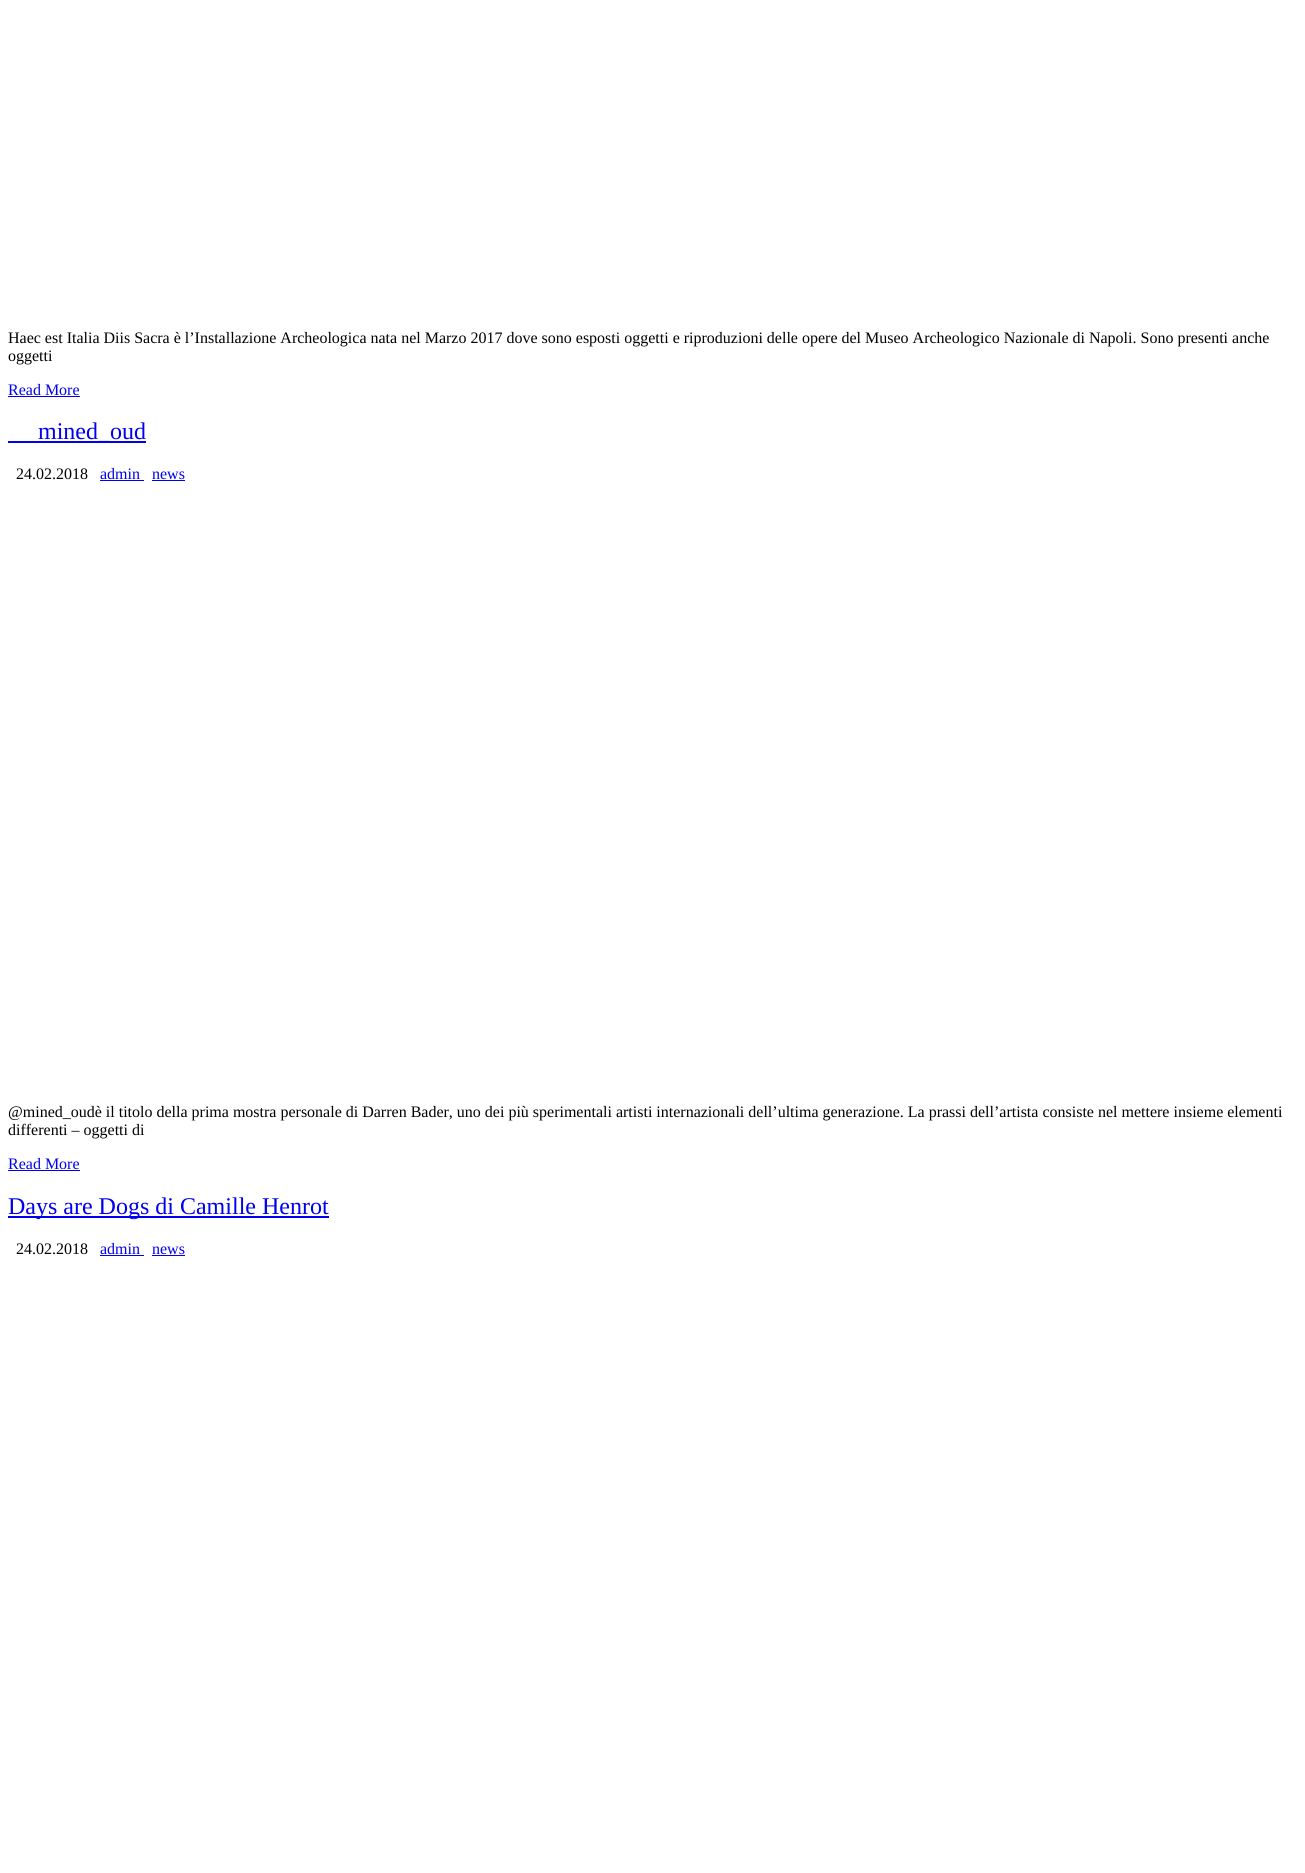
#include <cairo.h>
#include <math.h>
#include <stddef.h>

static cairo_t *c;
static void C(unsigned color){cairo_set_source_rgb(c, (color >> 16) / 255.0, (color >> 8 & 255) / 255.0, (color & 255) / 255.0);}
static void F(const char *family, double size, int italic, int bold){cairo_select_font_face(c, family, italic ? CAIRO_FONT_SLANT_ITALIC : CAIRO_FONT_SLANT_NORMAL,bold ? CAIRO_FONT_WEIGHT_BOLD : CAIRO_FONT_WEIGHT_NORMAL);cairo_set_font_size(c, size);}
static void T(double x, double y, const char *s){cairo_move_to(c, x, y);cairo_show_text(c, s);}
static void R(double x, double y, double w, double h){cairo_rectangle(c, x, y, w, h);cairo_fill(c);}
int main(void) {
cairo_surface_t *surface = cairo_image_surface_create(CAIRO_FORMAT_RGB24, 1305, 1873);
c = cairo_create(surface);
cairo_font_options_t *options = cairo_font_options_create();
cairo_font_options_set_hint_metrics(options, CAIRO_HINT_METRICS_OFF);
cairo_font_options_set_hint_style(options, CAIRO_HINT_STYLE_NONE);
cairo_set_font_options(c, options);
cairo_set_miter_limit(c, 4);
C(0xffffff);
cairo_paint(c);
F("Liberation Serif",16,0,0);
C(0x000000);
T(8,343,"Haec est Italia Diis Sacra è l’Installazione Archeologica nata nel Marzo 2017 dove sono esposti oggetti e riproduzioni delle opere del Museo Archeologico Nazionale di Napoli. Sono presenti anche");
T(8,361,"oggetti");
C(0x0000ee);
T(8,395,"Read More");
R(8,396,72,1);
R(8,441,138,2);
F("Liberation Serif",24,0,0);
T(38,439,"mined_oud");
F("Liberation Serif",16,0,0);
C(0x000000);
T(16,479,"24.02.2018");
C(0x0000ee);
T(100,479,"admin");
R(100,480,44,1);
T(152,479,"news");
R(152,480,33,1);
C(0x000000);
T(8,1117,"@mined_oudè il titolo della prima mostra personale di Darren Bader, uno dei più sperimentali artisti internazionali dell’ultima generazione. La prassi dell’artista consiste nel mettere insieme elementi");
T(8,1135,"differenti – oggetti di");
C(0x0000ee);
T(8,1169,"Read More");
R(8,1170,72,1);
R(8,1216,321,2);
F("Liberation Serif",24,0,0);
T(8,1214,"Days are Dogs di Camille Henrot");
F("Liberation Serif",16,0,0);
C(0x000000);
T(16,1254,"24.02.2018");
C(0x0000ee);
T(100,1254,"admin");
R(100,1255,44,1);
T(152,1254,"news");
R(152,1255,33,1);
cairo_surface_write_to_png(surface, "o.png");
cairo_font_options_destroy(options);
cairo_destroy(c);
cairo_surface_destroy(surface);
return 0;
}
